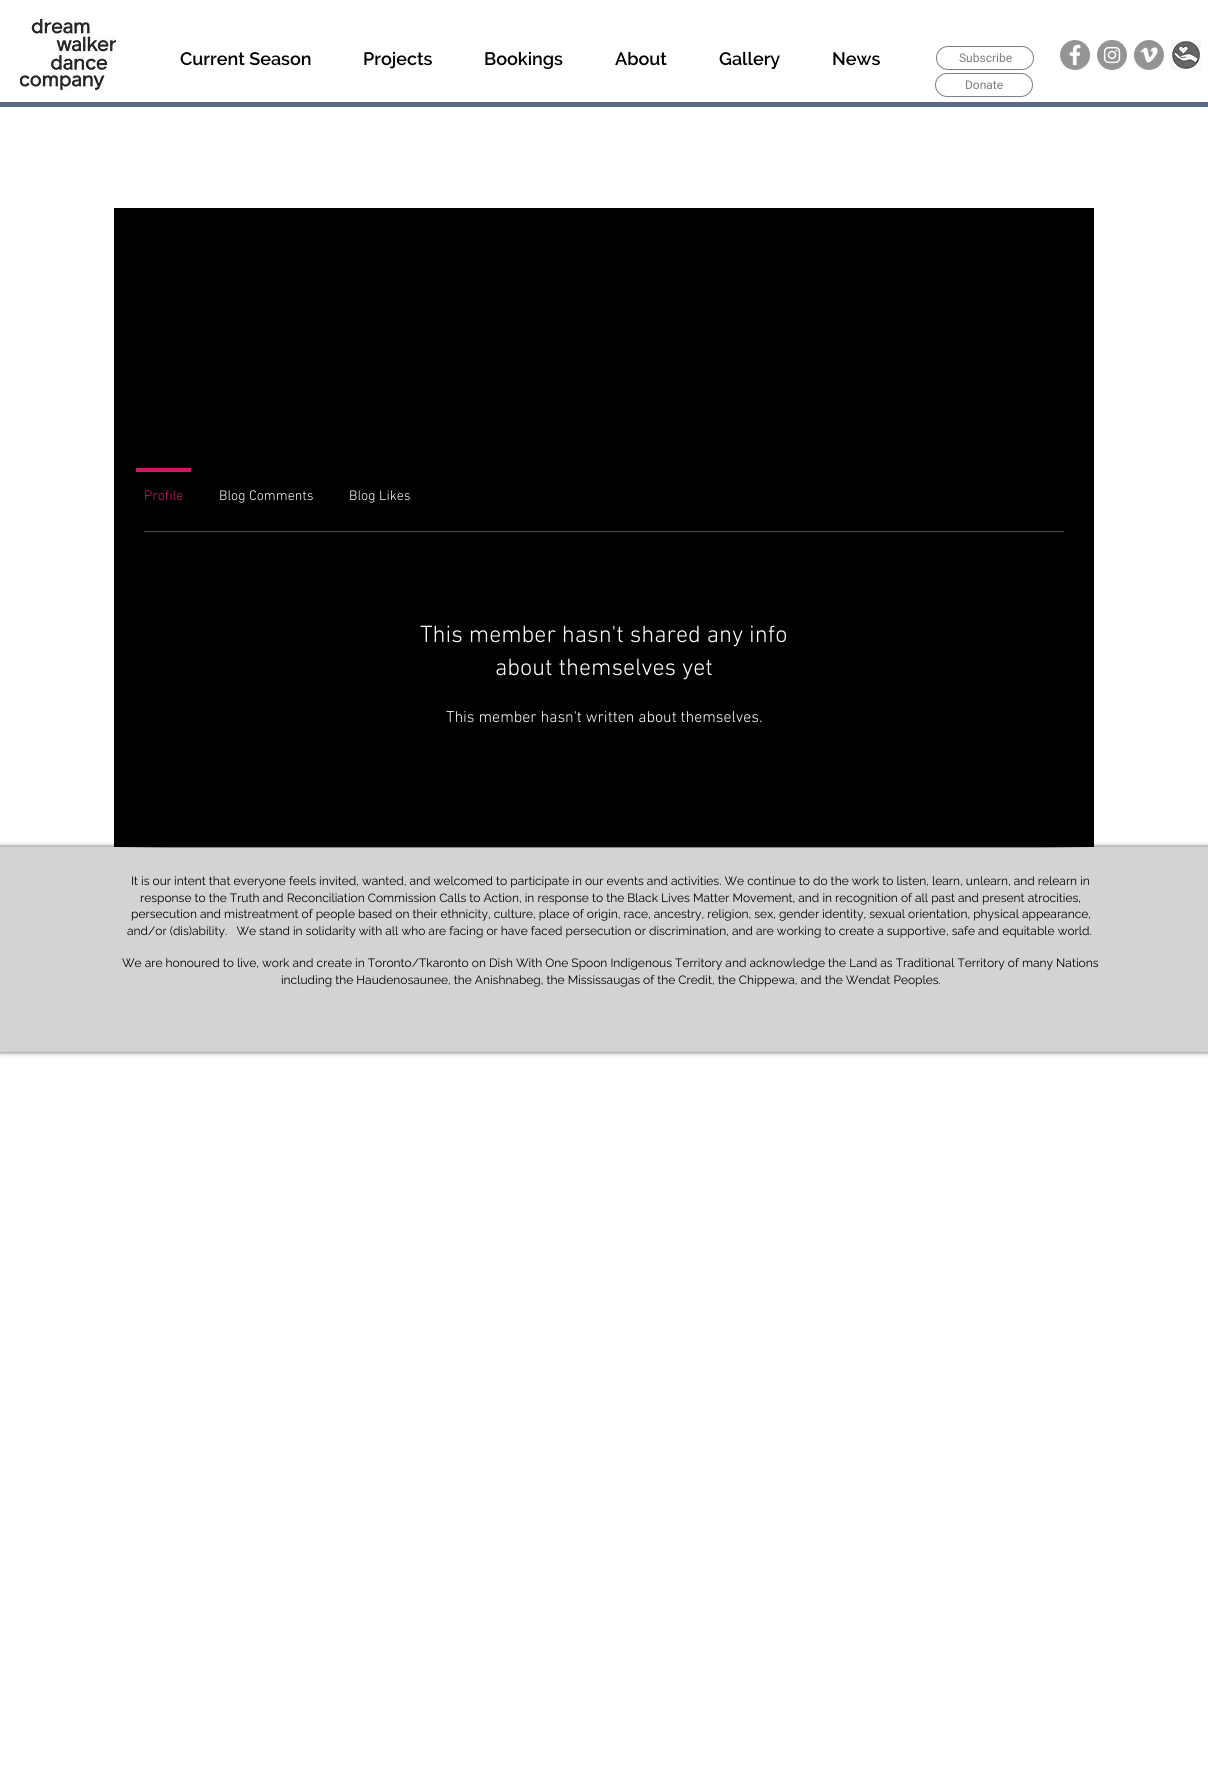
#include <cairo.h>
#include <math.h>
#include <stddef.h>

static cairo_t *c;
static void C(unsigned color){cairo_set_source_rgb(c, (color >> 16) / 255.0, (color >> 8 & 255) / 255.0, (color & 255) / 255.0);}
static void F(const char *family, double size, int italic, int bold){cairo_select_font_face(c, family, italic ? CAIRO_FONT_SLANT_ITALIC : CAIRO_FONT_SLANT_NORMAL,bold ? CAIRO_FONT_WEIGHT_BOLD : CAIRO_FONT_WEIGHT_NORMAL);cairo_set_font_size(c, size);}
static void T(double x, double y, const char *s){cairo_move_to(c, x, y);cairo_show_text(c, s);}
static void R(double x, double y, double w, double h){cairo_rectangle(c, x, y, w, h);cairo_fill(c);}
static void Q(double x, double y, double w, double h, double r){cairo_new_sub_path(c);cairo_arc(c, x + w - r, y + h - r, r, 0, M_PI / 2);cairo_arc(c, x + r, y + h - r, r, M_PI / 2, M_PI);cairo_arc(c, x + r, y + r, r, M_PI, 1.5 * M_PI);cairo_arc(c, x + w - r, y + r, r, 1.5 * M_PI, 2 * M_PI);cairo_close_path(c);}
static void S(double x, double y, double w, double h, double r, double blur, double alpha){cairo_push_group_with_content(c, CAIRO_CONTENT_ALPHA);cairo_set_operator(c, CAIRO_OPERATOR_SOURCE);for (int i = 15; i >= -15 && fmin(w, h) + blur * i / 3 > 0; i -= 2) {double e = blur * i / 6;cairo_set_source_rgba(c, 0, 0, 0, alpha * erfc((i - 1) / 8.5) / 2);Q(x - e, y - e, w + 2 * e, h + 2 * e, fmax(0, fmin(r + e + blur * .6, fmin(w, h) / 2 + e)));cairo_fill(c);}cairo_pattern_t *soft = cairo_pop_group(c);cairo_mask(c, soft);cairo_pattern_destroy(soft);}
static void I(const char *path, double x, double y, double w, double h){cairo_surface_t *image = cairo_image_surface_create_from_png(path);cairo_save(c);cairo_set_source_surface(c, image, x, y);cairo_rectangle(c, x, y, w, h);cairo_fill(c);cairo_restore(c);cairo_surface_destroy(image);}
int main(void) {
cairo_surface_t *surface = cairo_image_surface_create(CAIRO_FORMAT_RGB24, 1208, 1788);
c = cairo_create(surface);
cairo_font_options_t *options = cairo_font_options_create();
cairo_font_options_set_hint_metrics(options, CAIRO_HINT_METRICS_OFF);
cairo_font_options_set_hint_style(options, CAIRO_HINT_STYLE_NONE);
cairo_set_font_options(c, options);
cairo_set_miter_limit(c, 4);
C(0xffffff);
cairo_paint(c);
I("1.png",20,19,96,71);
F("Raleway SemiBold",18,0,0);
C(0x000000);
T(180,65,"Current Season");
T(363,65,"Projects");
T(484,65,"Bookings");
T(615,65,"About");
T(719,65,"Gallery");
T(832,65,"News");
Q(936.5,46.5,97,23,11.5);
C(0x7e7e7e);
cairo_set_line_width(c,1);
cairo_stroke(c);
F("Roboto",12,0,0);
T(959,62,"Subscribe");
I("2.png",1060,40,30,30);
I("3.png",1097,40,30,30);
I("4.png",1134,40,30,30);
I("5.png",1171,40,30,30);
Q(935.5,73.5,97,23,11.5);
cairo_stroke(c);
T(965,89,"Donate");
C(0x5a6882);
R(0,102,1208,5);
C(0x000000);
R(114,208,980,639);
C(0xcc1a69);
R(136,468,55,4);
F("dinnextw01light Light",14,0,0);
T(144,500,"Profile");
C(0xffffff);
T(219,500,"Blog Comments");
T(349,500,"Blog Likes");
C(0x4d4d4d);
R(144,531,920,1);
F("dinnextw01light Light",24,0,0);
C(0xffffff);
T(420,642,"This member hasn't shared any info");
T(495,675,"about themselves yet");
F("dinnextw01light Light",16,0,0);
T(446,722,"This member hasn't written about themselves.");
C(0x000000);
S(0,847,1208,205,0,2.5,.7);
C(0xd3d3d3);
R(0,847,1208,205);
I("6.png",117,847,97,1);
C(0x898989);
R(214,847,780,1);
I("7.png",994,847,97,1);
F("Raleway",12,0,0);
C(0x000000);
T(131,885,"It is our intent that everyone feels invited, wanted, and welcomed to participate in our events and activities. We continue to do the work to listen, learn, unlearn, and relearn in");
T(140,902,"response to the Truth and Reconciliation Commission Calls to Action, in response to the Black Lives Matter Movement, and in recognition of all past and present atrocities,");
T(131,918,"persecution and mistreatment of people based on their ethnicity, culture, place of origin, race, ancestry, religion, sex, gender identity, sexual orientation, physical appearance,");
T(127,935,"and/or (dis)ability.   We stand in solidarity with all who are facing or have faced persecution or discrimination, and are working to create a supportive, safe and equitable world.");
T(122,967,"We are honoured to live, work and create in Toronto/Tkaronto on Dish With One Spoon Indigenous Territory and acknowledge the Land as Traditional Territory of many Nations");
T(281,984,"including the Haudenosaunee, the Anishnabeg, the Mississaugas of the Credit, the Chippewa, and the Wendat Peoples.");
cairo_surface_write_to_png(surface, "o.png");
cairo_font_options_destroy(options);
cairo_destroy(c);
cairo_surface_destroy(surface);
return 0;
}
